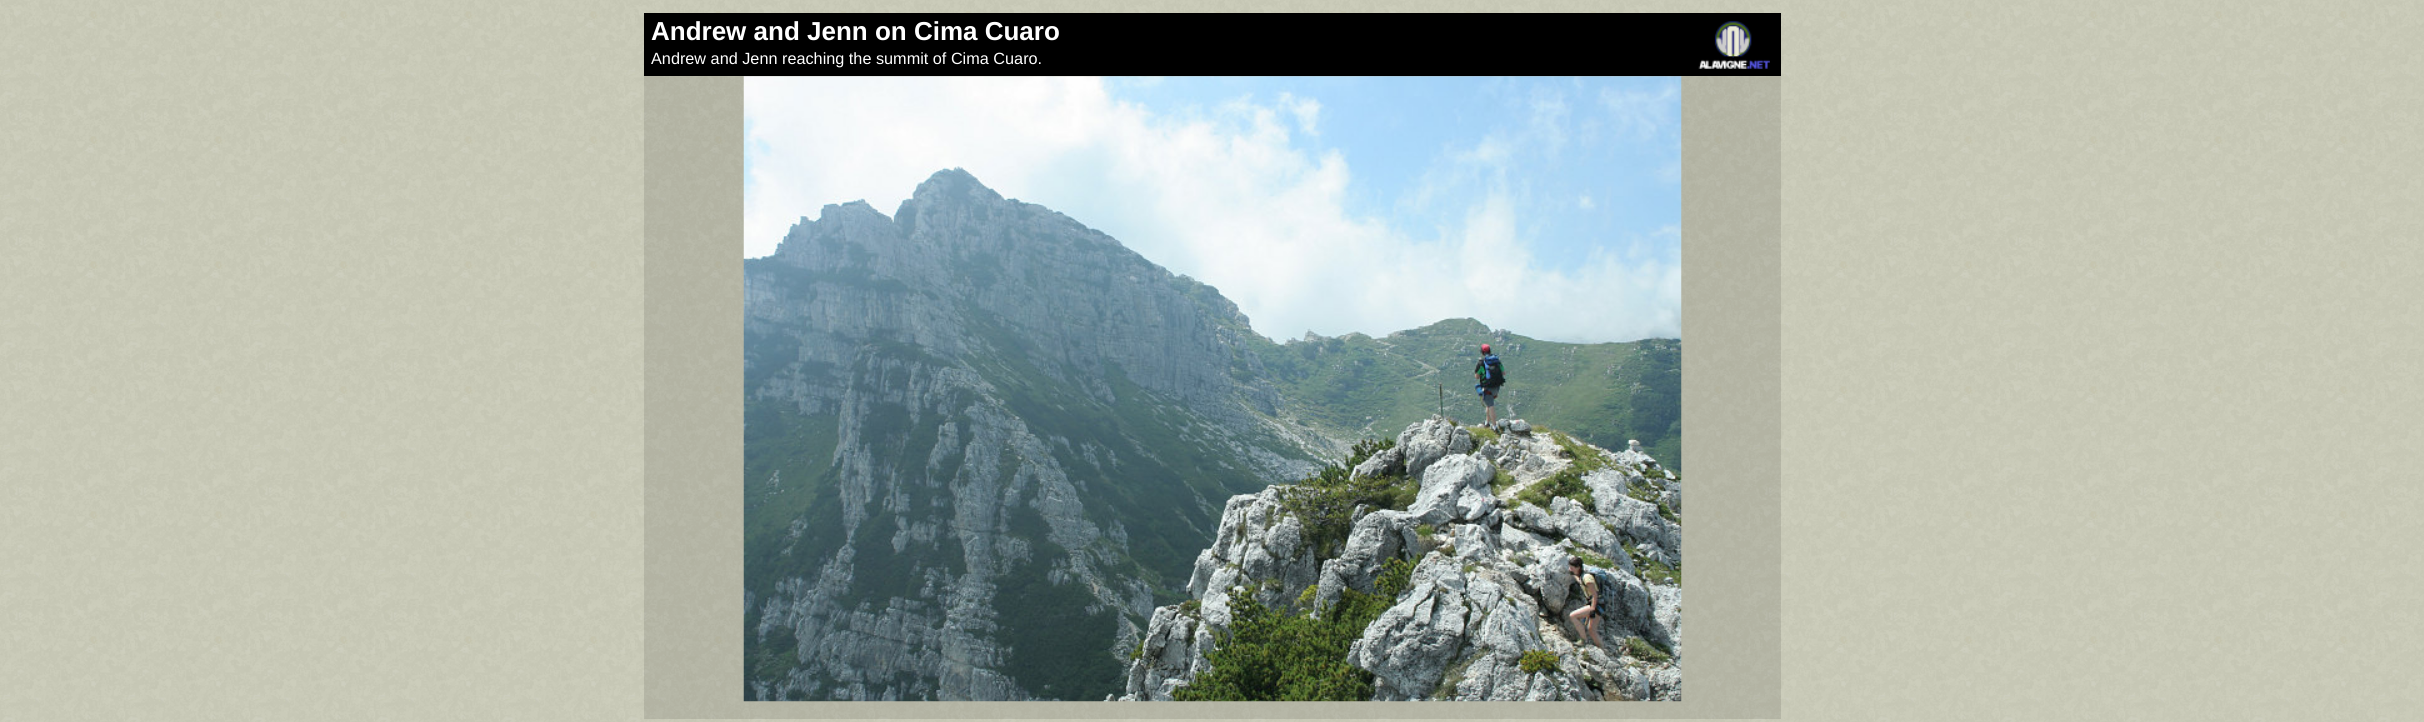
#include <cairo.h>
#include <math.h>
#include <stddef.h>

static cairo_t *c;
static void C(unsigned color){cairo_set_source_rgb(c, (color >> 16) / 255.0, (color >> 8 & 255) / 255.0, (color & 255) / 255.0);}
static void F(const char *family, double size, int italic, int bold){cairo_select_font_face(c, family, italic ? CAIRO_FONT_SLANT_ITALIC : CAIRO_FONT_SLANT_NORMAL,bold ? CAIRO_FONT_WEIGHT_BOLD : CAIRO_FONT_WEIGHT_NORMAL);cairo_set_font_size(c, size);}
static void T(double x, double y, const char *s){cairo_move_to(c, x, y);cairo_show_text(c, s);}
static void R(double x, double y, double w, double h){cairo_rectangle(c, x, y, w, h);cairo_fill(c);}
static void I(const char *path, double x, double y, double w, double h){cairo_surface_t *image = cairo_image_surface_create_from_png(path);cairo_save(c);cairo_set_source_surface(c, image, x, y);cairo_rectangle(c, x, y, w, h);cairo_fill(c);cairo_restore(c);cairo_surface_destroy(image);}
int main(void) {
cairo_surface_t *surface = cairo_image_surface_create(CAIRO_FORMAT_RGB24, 2424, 722);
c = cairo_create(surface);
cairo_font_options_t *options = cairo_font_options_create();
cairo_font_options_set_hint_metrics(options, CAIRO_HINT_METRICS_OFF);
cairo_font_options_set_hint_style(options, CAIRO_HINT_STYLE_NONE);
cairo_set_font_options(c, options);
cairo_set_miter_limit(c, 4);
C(0xffffff);
cairo_paint(c);
I("1.png",0,0,2424,722);
C(0x000000);
R(644,13,1137,63);
F("Liberation Sans",26,0,1);
C(0xffffff);
T(651,40,"Andrew and Jenn on Cima Cuaro");
I("2.png",1698,21,72,48);
F("Liberation Sans",16.25,0,0);
T(651,64,"Andrew and Jenn reaching the summit of Cima Cuaro.");
cairo_set_source_rgba(c,0,0,0,0.1);
R(644,76,1137,643);
I("3.png",743,76,939,626);
cairo_surface_write_to_png(surface, "o.png");
cairo_font_options_destroy(options);
cairo_destroy(c);
cairo_surface_destroy(surface);
return 0;
}
